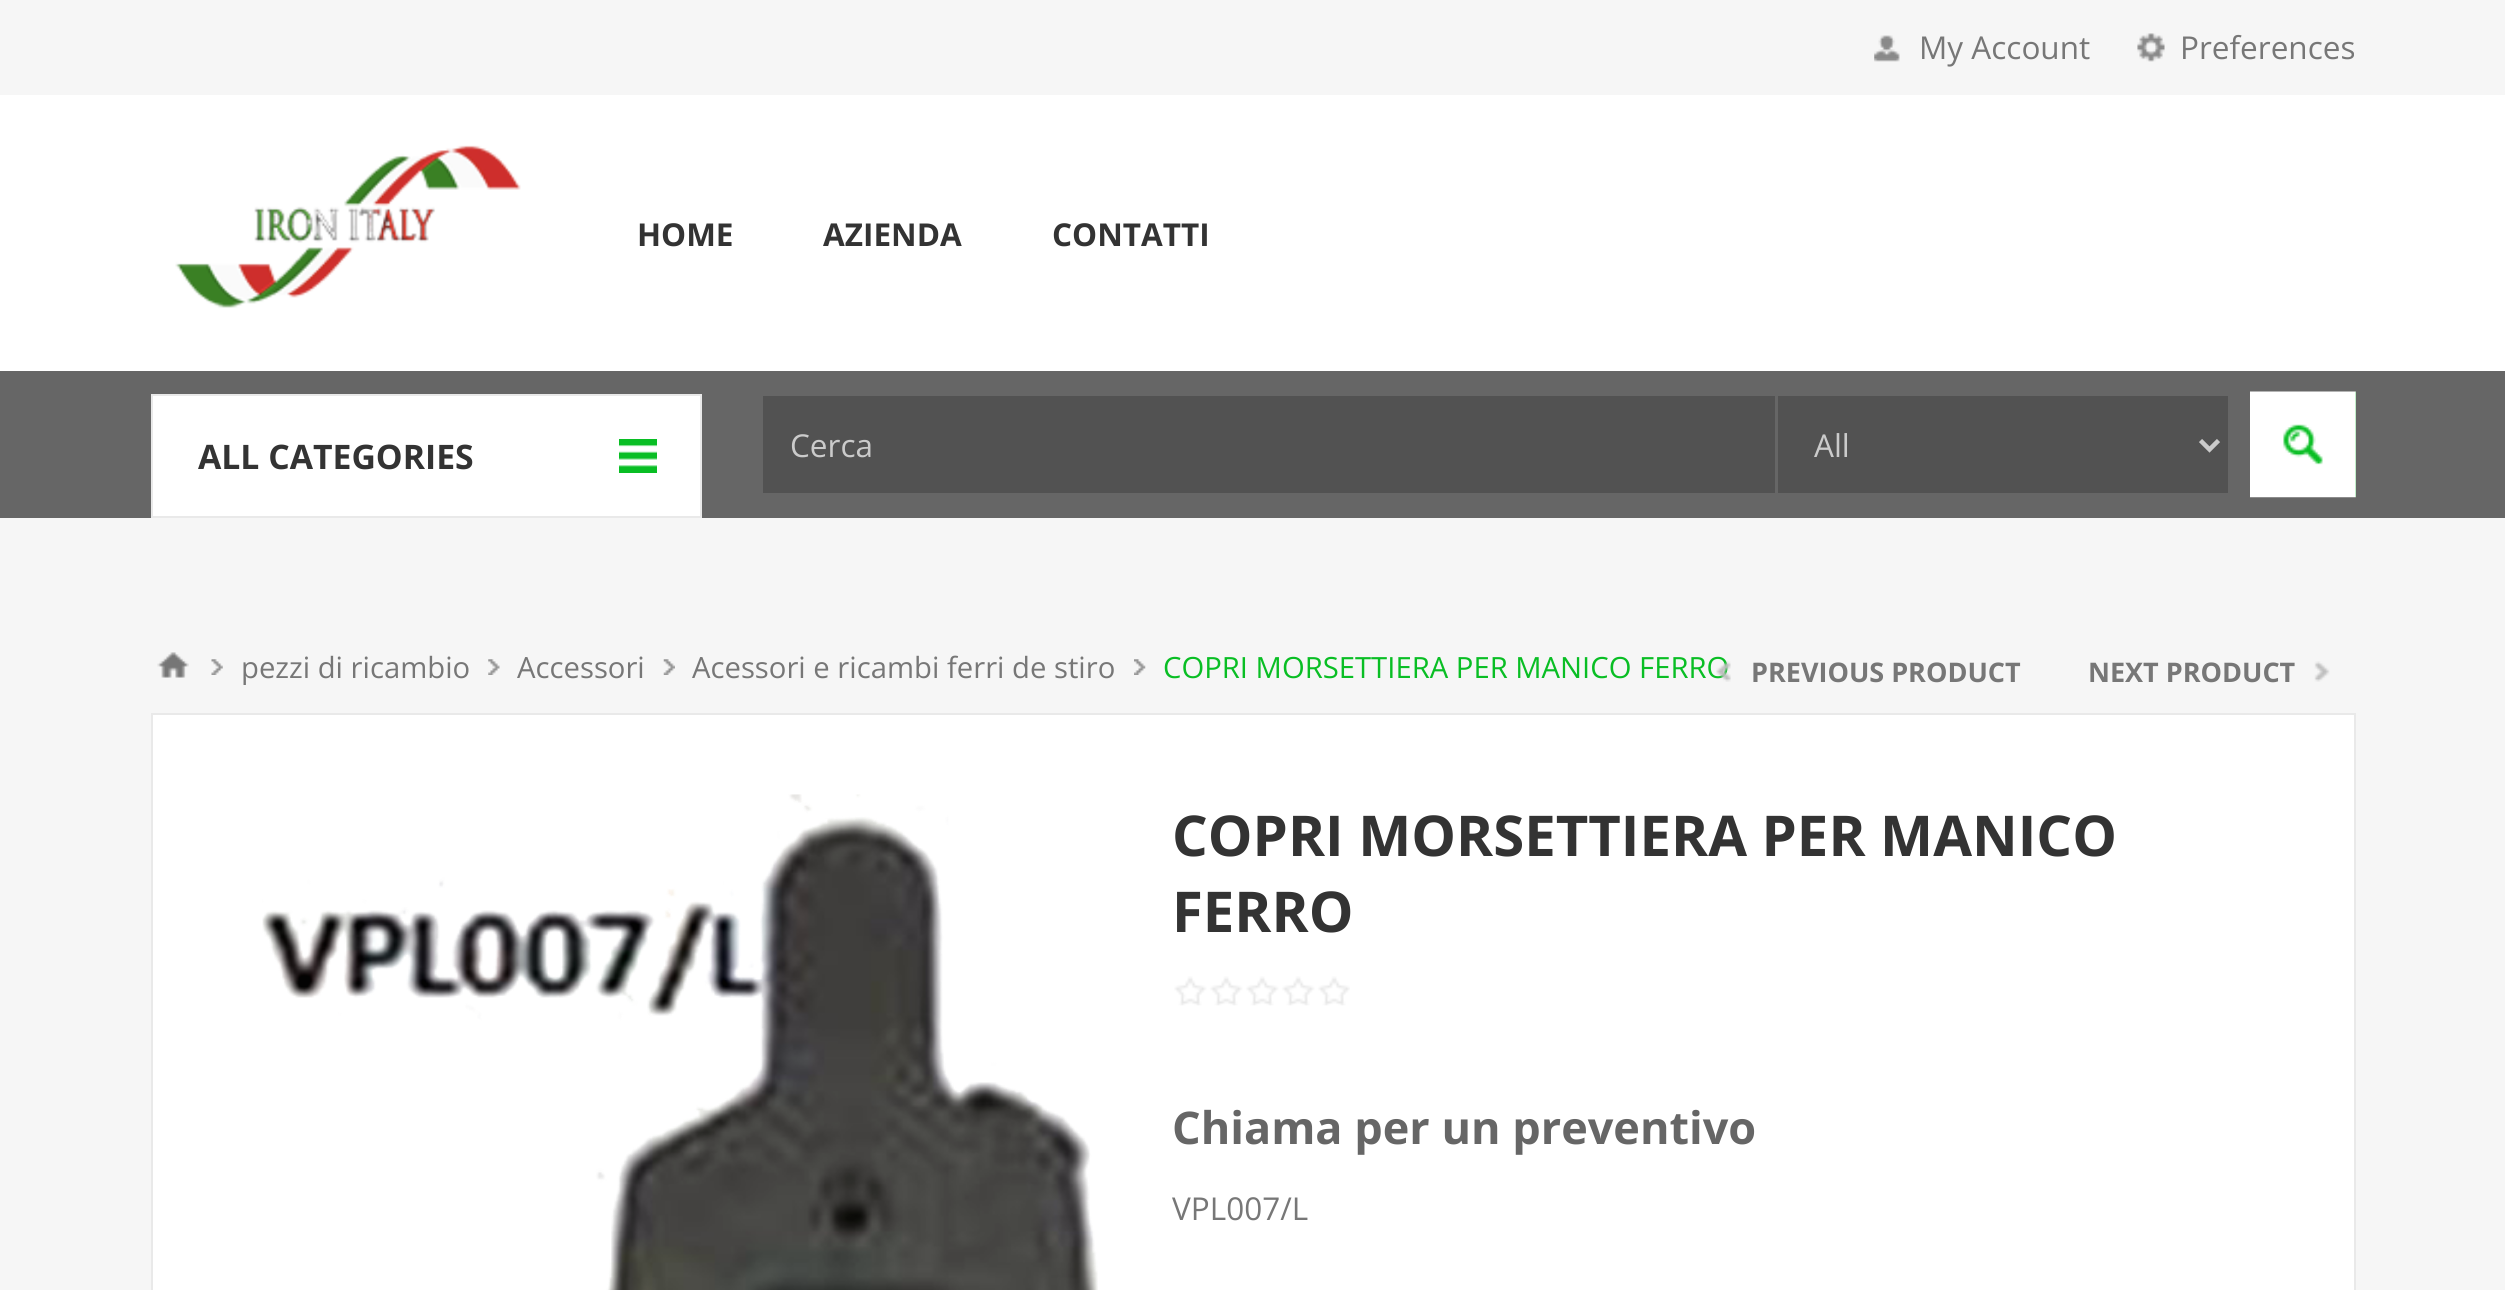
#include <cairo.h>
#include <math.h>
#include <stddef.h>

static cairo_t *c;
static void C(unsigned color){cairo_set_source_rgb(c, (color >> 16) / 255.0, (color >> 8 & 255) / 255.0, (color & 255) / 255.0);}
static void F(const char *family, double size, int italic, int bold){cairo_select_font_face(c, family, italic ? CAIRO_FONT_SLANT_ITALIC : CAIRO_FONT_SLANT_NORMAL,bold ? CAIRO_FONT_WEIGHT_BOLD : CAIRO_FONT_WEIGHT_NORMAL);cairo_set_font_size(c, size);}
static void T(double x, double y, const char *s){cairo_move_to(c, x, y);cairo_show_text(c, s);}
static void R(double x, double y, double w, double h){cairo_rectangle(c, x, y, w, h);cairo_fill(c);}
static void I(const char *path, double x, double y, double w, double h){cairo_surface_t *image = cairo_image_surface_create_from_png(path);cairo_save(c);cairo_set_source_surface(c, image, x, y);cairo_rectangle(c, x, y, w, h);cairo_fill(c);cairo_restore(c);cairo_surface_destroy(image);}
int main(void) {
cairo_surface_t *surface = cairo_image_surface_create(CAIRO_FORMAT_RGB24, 2505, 1290);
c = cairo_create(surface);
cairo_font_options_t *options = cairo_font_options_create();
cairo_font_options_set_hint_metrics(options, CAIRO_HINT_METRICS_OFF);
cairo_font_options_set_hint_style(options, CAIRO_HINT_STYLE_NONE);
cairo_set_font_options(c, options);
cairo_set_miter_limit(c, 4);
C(0xf6f6f6);
cairo_paint(c);
I("1.png",1874,35,26,27);
F("Open Sans",31.5,0,0);
C(0x777777);
T(1919,59,"My Account");
I("2.png",2137,33,28,29);
T(2180,59,"Preferences");
C(0xffffff);
R(0,95,2505,276);
I("3.png",151,140,387,186);
F("Open Sans",31.5,0,1);
C(0x333333);
T(637,246,"HOME");
T(823,246,"AZIENDA");
T(1052,246,"CONTATTI");
C(0x666666);
R(0,371,2505,147);
C(0xffffff);
cairo_rectangle(c,152,395,549,122);
cairo_fill_preserve(c);
C(0xe9e9e9);
cairo_stroke(c);
F("Open Sans",33.75,0,1);
C(0x333333);
T(198,469,"ALL CATEGORIES");
C(0x09be24);
R(619,439,38,34);
I("4.png",619,445,38,22);
C(0x525252);
R(763,396,1012,97);
F("Open Sans",31.5,0,0);
C(0xcbcbcb);
T(790,457,"Cerca");
C(0x525252);
R(1778,396,450,97);
cairo_new_path(c);
cairo_move_to(c,2200.5,440.5);
cairo_line_to(c,2209.5,449.5);
cairo_line_to(c,2218.5,440.5);
C(0xcbcbcb);
cairo_set_line_width(c,4.5);
cairo_stroke(c);
T(1814,457,"All");
C(0x09be24);
R(2283,392,73,105);
I("5.png",2250,391,106,107);
I("6.png",157,652,32,26);
I("7.png",211,659,12,16);
F("Open Sans",29.25,0,0);
C(0x777777);
T(241,678,"pezzi di ricambio");
I("8.png",488,659,12,16);
T(517,678,"Accessori");
I("9.png",663,659,12,16);
T(692,678,"Acessori e ricambi ferri de stiro");
I("10.png",1134,659,12,16);
C(0x09be24);
T(1163,678,"COPRI MORSETTIERA PER MANICO FERRO");
I("11.png",1716,661,15,21);
F("Open Sans",27,0,1);
C(0x777777);
T(1751,682,"PREVIOUS PRODUCT");
T(2088,682,"NEXT PRODUCT");
I("12.png",2314,661,16,21);
C(0xffffff);
cairo_rectangle(c,152,714,2203,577);
cairo_fill_preserve(c);
C(0xe9e9e9);
cairo_set_line_width(c,2);
cairo_stroke(c);
I("13.png",262,794,836,496);
F("Open Sans",56.25,0,1);
C(0x333333);
T(1172,856,"COPRI MORSETTIERA PER MANICO");
T(1172,932,"FERRO");
I("14.png",1174,976,176,30);
F("Open Sans",45,0,1);
C(0x666666);
T(1172,1144,"Chiama per un preventivo");
F("Open Sans",31.5,0,0);
C(0x777777);
T(1172,1220,"VPL007/L");
cairo_surface_write_to_png(surface, "o.png");
cairo_font_options_destroy(options);
cairo_destroy(c);
cairo_surface_destroy(surface);
return 0;
}
